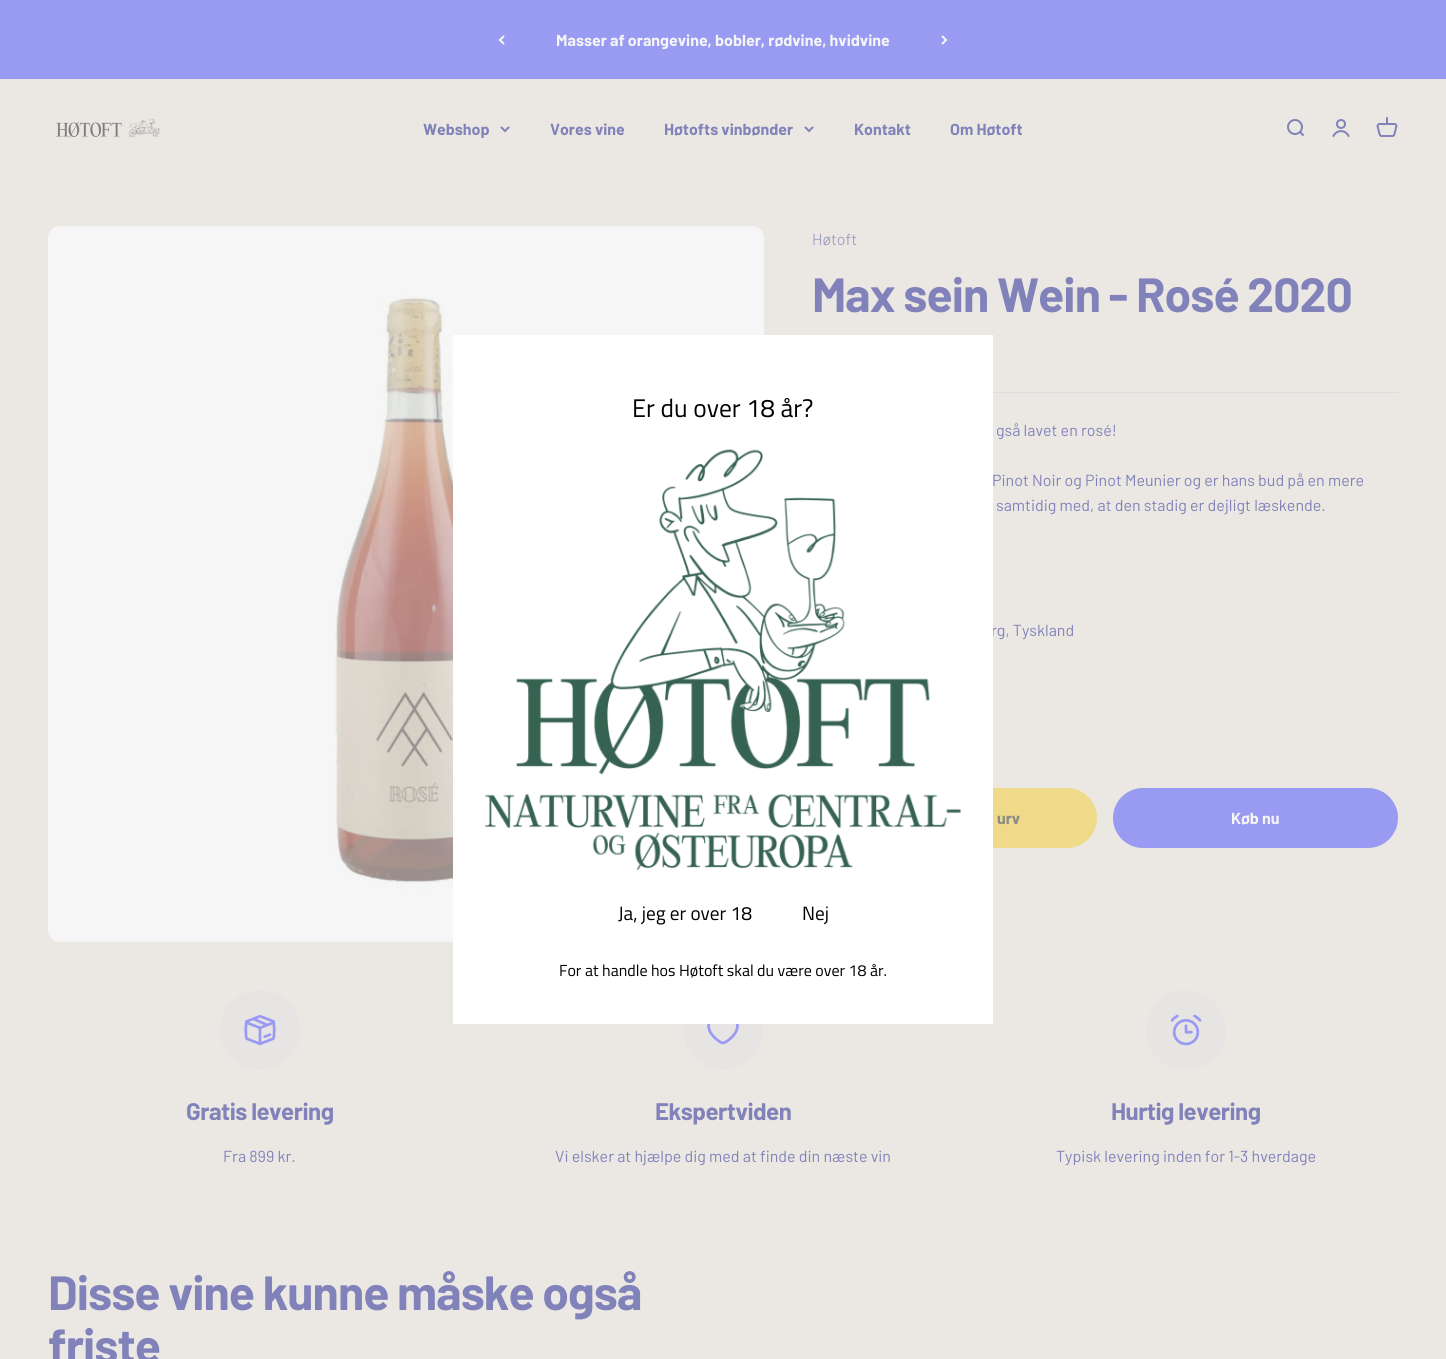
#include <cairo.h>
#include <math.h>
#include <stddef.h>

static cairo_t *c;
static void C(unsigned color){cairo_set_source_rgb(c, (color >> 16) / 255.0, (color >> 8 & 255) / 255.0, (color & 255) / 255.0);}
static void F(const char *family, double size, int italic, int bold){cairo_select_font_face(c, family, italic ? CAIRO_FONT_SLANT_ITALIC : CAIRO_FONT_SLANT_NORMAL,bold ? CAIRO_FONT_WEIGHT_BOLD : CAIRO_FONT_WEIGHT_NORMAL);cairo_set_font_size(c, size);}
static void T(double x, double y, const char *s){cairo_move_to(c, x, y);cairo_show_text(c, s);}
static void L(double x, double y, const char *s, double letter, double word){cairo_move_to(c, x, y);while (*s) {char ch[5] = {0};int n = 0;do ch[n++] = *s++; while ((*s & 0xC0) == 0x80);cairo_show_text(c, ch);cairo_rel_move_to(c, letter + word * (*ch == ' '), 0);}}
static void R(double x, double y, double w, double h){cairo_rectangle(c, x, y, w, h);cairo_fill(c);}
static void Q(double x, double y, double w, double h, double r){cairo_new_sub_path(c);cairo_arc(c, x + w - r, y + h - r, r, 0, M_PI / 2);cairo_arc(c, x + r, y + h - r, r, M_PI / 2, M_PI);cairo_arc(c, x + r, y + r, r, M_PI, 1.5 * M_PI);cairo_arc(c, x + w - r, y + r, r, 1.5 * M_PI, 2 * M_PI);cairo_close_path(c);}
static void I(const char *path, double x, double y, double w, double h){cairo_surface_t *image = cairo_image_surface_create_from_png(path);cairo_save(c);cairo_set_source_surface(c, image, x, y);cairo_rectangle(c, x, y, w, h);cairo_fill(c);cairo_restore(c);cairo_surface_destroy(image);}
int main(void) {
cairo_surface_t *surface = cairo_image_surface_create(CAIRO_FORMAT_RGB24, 1446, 1359);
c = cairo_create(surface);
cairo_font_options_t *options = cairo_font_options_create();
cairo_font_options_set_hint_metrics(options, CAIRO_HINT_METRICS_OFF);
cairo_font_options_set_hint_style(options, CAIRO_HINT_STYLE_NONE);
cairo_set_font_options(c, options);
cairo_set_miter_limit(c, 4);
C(0xebe8e3);
cairo_paint(c);
C(0x999af2);
R(0,0,1446,79);
cairo_new_path(c);
cairo_move_to(c,504,36);
cairo_line_to(c,500,40);
cairo_line_to(c,504,44);
C(0xf5f5f5);
cairo_stroke(c);
F("Barlow",16,0,1);
T(556,46,"Masser af orangevine, bobler, rødvine, hvidvine");
cairo_new_path(c);
cairo_move_to(c,942,44);
cairo_line_to(c,946,40);
cairo_line_to(c,942,36);
cairo_stroke(c);
I("1.png",56,118,104,20);
C(0x8182ba);
T(423,135,"Webshop");
cairo_new_path(c);
cairo_move_to(c,501,127);
cairo_line_to(c,505,131);
cairo_line_to(c,509,127);
cairo_stroke(c);
T(550,135,"Vores vine");
T(664,135,"Høtofts vinbønder");
cairo_new_path(c);
cairo_move_to(c,805,127);
cairo_line_to(c,809,131);
cairo_line_to(c,813,127);
cairo_stroke(c);
T(854,135,"Kontakt");
T(950,135,"Om Høtoft");
I("2.png",1287,119,17,17);
cairo_arc(c,1341,124,4,0,2 * M_PI);
cairo_stroke(c);
cairo_new_path(c);
cairo_move_to(c,1333.5,136);
cairo_curve_to(c,1336.5,129.5,1345.5,129.5,1348.5,136);
cairo_set_line_cap(c,CAIRO_LINE_CAP_ROUND);
cairo_stroke(c);
I("3.png",1376,117,22,20);
I("4.png",48,226,716,716);
F("Barlow",16,0,0);
C(0xa1a1c6);
T(812,245,"Høtoft");
F("Barlow",48,0,1);
C(0x8182ba);
L(812,312,"Max sein Wein - Rosé 2020",-.95,0);
C(0xdedcde);
R(993,392,405,1);
F("Barlow",16,0,0);
C(0x8182ba);
T(996,436,"gså lavet en rosé!");
T(992,486,"Pinot Noir og Pinot Meunier og er hans bud på en mere");
T(996,511,"samtidig med, at den stadig er dejligt læskende.");
T(991,636,"rg, Tyskland");
C(0xeeda88);
Q(812,788,285,60,30);
cairo_fill(c);
F("Barlow",16,0,1);
C(0x8a8a8a);
T(997,824,"urv");
C(0x999af2);
Q(1113,788,285,60,30);
cairo_fill(c);
C(0xf5f5f5);
T(1231,824,"Køb nu");
C(0xe7e4e4);
cairo_new_path(c);
cairo_arc(c,260,1030,40,0,2 * M_PI);
cairo_fill(c);
I("5.png",244,1015,32,31);
F("Barlow",24,0,1);
C(0x8182ba);
L(186,1120,"Gratis levering",-.5,0);
F("Barlow",16,0,0);
T(223,1162,"Fra 899 kr.");
C(0xe7e4e4);
cairo_new_path(c);
cairo_arc(c,723,1030,40,0,2 * M_PI);
cairo_fill(c);
cairo_new_path(c);
cairo_move_to(c,723,1021.5);
cairo_curve_to(c,716,1013,709,1019,708.5,1025.5);
cairo_curve_to(c,708.5,1035,720.5,1043,723,1043);
cairo_curve_to(c,725.5,1043,737.5,1035,737.5,1025.5);
cairo_curve_to(c,737,1019,730,1013,723,1021.5);
cairo_close_path(c);
C(0x999af2);
cairo_set_line_width(c,2.7);
cairo_set_line_join(c,CAIRO_LINE_JOIN_ROUND);
cairo_stroke(c);
F("Barlow",24,0,1);
C(0x8182ba);
L(655,1120,"Ekspertviden",-.5,0);
F("Barlow",16,0,0);
T(555,1162,"Vi elsker at hjælpe dig med at finde din næste vin");
C(0xe7e4e4);
cairo_new_path(c);
cairo_arc(c,1186,1030,40,0,2 * M_PI);
cairo_fill(c);
I("6.png",1170,1014,32,32);
F("Barlow",24,0,1);
C(0x8182ba);
L(1111,1120,"Hurtig levering",-.5,0);
F("Barlow",16,0,0);
T(1056,1162,"Typisk levering inden for 1-3 hverdage");
F("Barlow",48,0,1);
L(48,1310,"Disse vine kunne måske også",-.95,0);
L(48,1363,"friste",-.95,0);
C(0xffffff);
R(453,335,540,689);
F("Titillium Web",25.5,0,0);
C(0x000000);
T(632,417,"Er du over 18 år?");
I("7.png",485,449,476,421);
F("Titillium Web",19.25,0,0);
T(618,920,"Ja, jeg er over 18");
T(802,920,"Nej");
F("Titillium Web",16,0,0);
T(559,976,"For at handle hos Høtoft skal du være over 18 år.");
cairo_surface_write_to_png(surface, "o.png");
cairo_font_options_destroy(options);
cairo_destroy(c);
cairo_surface_destroy(surface);
return 0;
}
